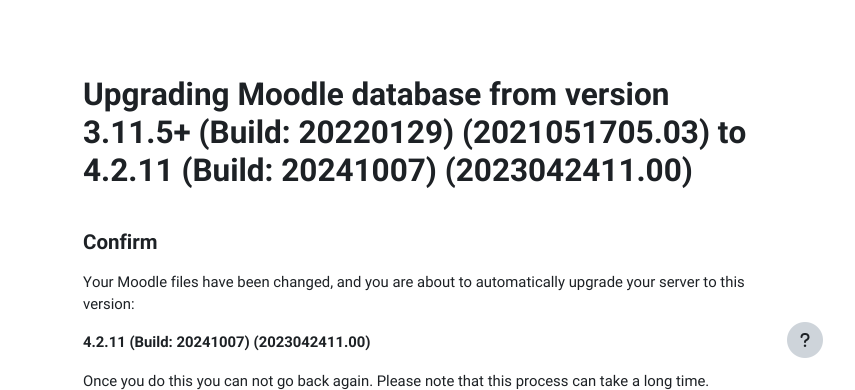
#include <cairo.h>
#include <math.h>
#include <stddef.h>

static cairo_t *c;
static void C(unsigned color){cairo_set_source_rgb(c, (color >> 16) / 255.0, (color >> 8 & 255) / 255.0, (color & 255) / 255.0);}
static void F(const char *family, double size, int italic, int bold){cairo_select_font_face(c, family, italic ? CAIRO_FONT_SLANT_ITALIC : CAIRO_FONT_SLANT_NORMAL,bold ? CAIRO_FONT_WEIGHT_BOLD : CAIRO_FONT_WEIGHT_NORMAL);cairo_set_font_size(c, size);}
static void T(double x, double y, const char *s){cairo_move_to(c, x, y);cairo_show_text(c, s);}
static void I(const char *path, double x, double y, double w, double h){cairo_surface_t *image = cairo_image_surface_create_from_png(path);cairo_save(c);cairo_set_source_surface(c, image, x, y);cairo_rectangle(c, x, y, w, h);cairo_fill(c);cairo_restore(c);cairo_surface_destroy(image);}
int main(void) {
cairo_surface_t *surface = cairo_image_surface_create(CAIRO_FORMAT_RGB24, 855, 390);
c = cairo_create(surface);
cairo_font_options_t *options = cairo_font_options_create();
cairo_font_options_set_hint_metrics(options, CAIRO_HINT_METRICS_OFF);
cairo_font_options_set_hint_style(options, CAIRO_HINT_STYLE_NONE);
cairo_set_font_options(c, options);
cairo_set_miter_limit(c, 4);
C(0xffffff);
cairo_paint(c);
F("Roboto",31.5,0,1);
C(0x1d2125);
T(83,105,"Upgrading Moodle database from version");
T(83,143,"3.11.5+ (Build: 20220129) (2021051705.03) to");
T(83,181,"4.2.11 (Build: 20241007) (2023042411.00)");
F("Roboto",20.5,0,1);
T(83,249,"Confirm");
F("Roboto",14.85,0,0);
T(83,287,"Your Moodle files have been changed, and you are about to automatically upgrade your server to this");
T(83,309,"version:");
F("Roboto",14.85,0,1);
T(83,347,"4.2.11 (Build: 20241007) (2023042411.00)");
F("Roboto",14.85,0,0);
T(83,386,"Once you do this you can not go back again. Please note that this process can take a long time.");
C(0xced4da);
cairo_new_path(c);
cairo_arc(c,805,340,18,0,2 * M_PI);
cairo_fill(c);
I("1.png",800,333,10,14);
cairo_surface_write_to_png(surface, "o.png");
cairo_font_options_destroy(options);
cairo_destroy(c);
cairo_surface_destroy(surface);
return 0;
}
